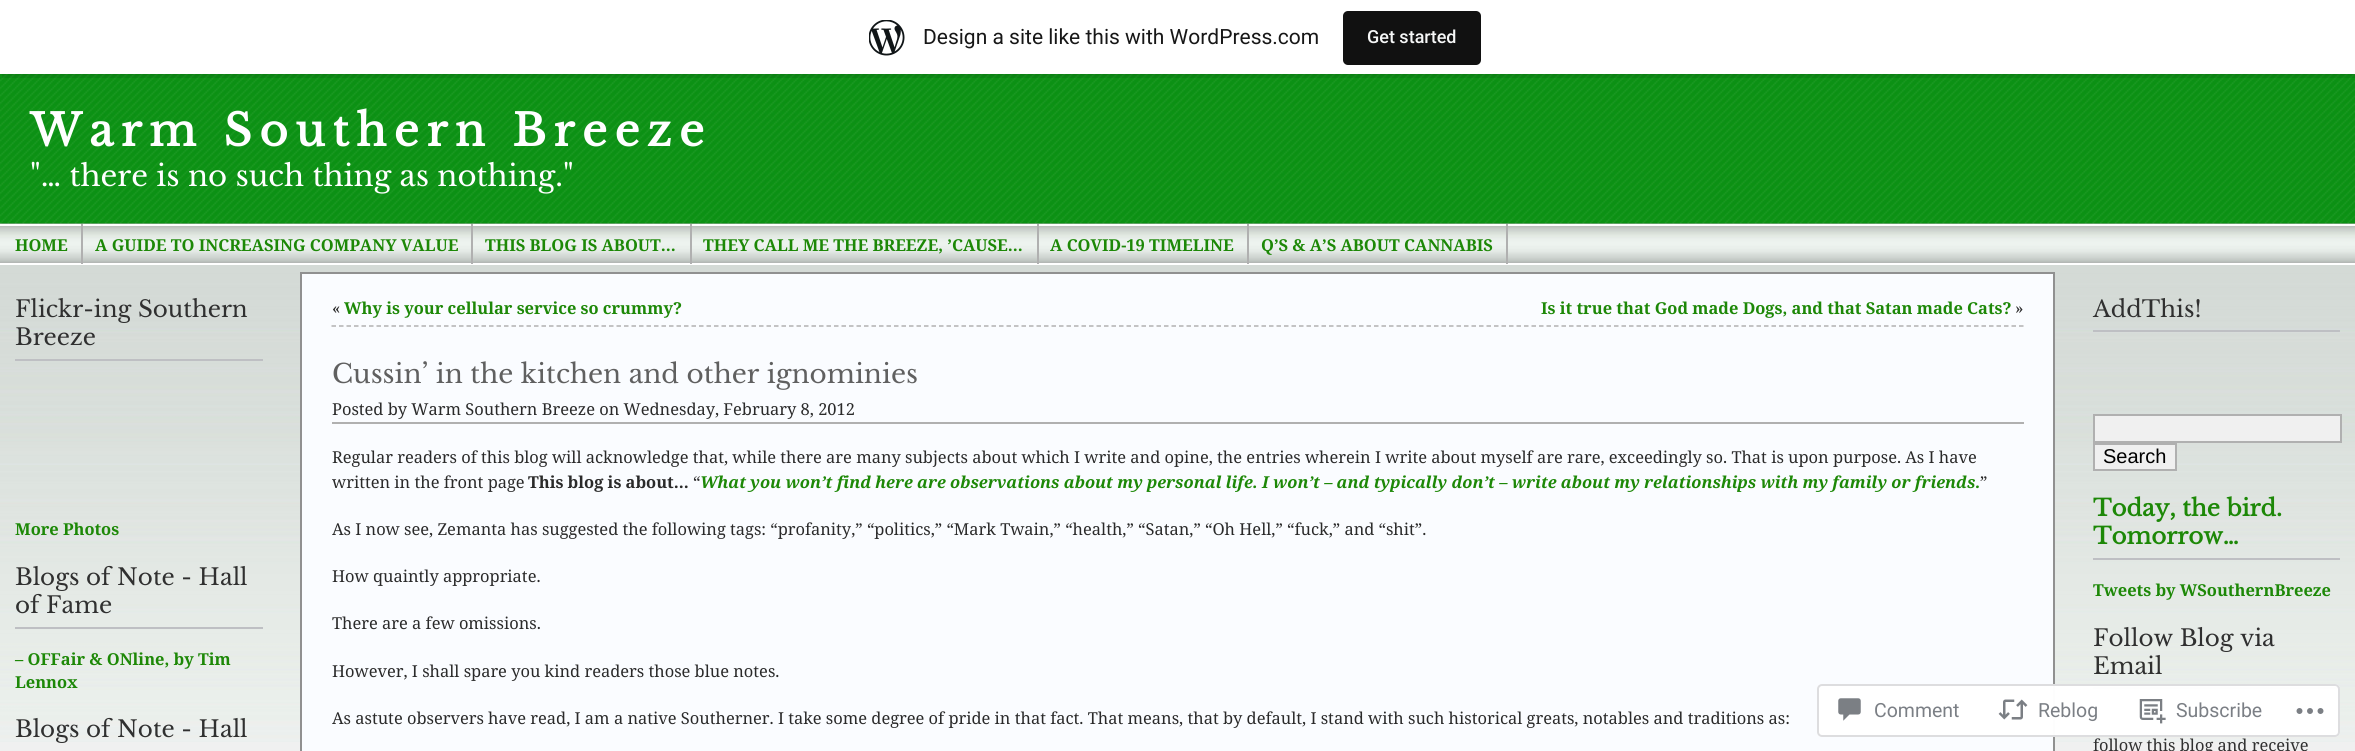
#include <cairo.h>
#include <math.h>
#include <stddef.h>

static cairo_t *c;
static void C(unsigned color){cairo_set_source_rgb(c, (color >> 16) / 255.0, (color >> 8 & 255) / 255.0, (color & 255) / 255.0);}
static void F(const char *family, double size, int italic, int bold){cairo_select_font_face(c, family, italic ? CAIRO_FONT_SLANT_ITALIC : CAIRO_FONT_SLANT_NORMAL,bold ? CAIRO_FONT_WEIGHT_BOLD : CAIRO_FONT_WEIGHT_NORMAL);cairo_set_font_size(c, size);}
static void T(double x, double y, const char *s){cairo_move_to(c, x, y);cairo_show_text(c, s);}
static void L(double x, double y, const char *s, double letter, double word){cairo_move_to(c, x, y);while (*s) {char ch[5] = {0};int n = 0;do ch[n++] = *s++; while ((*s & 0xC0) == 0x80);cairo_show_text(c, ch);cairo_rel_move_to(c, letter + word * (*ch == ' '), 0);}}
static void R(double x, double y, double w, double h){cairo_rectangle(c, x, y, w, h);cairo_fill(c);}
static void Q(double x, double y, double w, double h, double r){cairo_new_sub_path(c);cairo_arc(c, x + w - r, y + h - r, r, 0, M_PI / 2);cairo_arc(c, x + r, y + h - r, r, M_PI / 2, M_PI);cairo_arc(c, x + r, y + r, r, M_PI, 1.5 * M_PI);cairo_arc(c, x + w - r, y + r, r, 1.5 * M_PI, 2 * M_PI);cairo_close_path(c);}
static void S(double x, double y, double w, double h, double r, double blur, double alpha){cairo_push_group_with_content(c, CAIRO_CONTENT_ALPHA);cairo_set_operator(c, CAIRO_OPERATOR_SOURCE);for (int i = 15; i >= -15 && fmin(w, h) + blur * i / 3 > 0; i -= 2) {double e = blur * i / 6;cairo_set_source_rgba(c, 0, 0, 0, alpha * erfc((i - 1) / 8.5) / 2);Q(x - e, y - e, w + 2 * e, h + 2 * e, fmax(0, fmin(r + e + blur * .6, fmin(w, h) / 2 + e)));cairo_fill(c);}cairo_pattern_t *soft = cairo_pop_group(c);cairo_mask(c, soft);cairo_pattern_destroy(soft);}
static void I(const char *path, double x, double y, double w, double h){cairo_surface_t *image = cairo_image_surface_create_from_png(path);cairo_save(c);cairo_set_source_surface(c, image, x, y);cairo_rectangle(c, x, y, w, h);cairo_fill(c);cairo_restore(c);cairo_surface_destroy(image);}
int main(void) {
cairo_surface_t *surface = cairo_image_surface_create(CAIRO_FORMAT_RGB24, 2355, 751);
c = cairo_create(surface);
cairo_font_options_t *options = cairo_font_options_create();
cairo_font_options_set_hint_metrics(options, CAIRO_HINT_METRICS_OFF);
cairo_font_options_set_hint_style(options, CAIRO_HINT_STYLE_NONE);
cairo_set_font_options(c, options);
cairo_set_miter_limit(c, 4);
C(0xf0f0f0);
cairo_paint(c);
I("2.png",0,74,2355,668);
C(0x000000);
S(0,2,2355,73,0,1.5,.05);
cairo_set_source_rgba(c,0,0,0,0.08);
cairo_new_path(c);
cairo_move_to(c,2,74);
cairo_line_to(c,2,78);
cairo_line_to(c,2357,78);
cairo_line_to(c,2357,5);
cairo_line_to(c,2355,5);
cairo_line_to(c,2355,74);
cairo_close_path(c);
cairo_fill(c);
C(0xffffff);
R(0,0,2355,74);
I("1.png",869,20,36,36);
F("Roboto",21,0,0);
C(0x171717);
T(923,44,"Design a site like this with WordPress.com");
C(0x111111);
Q(1343,11,138,54,5);
cairo_fill(c);
F("Roboto Medium",18,0,0);
C(0xf6f7f7);
T(1367,43,"Get started");
F("Libre Baskerville",43.75,0,1);
C(0xffffff);
L(30,146,"Warm Southern Breeze",7.5,0);
F("Libre Baskerville",29.2,0,0);
T(30,186,"\"… there is no such thing as nothing.\"");
C(0xb0b0b0);
R(0,262,2355,1);
I("3.png",0,226,2355,37);
C(0xffffff);
R(0,224,2355,2);
R(0,263,2355,2);
F("Noto Serif",16.42,0,1);
C(0x1d8807);
T(15,251,"HOME");
C(0xb0b0b0);
R(81,224,2,40);
C(0x1d8807);
T(95,251,"A GUIDE TO INCREASING COMPANY VALUE");
C(0xb0b0b0);
R(471,224,2,40);
C(0x1d8807);
T(485,251,"THIS BLOG IS ABOUT…");
C(0xb0b0b0);
R(690,224,2,40);
C(0x1d8807);
T(703,251,"THEY CALL ME THE BREEZE, ’CAUSE…");
C(0xb0b0b0);
R(1037,224,2,40);
C(0x1d8807);
T(1050,251,"A COVID-19 TIMELINE");
C(0xb0b0b0);
R(1247,224,2,40);
C(0x1d8807);
T(1261,251,"Q’S & A’S ABOUT CANNABIS");
C(0xb0b0b0);
R(1506,224,2,40);
C(0xbebfc3);
R(15,359,248,2);
F("Libre Baskerville",23,0,0);
C(0x303030);
T(15,317,"Flickr-ing Southern");
T(15,345,"Breeze");
F("Noto Serif",16.42,0,1);
C(0x1d8807);
T(15,535,"More Photos");
C(0xbebfc3);
R(15,627,248,2);
F("Libre Baskerville",23,0,0);
C(0x303030);
T(15,585,"Blogs of Note - Hall");
T(15,613,"of Fame");
F("Noto Serif",16.42,0,1);
C(0x1d8807);
T(15,665,"– OFFair & ONline, by Tim");
T(15,688,"Lennox");
F("Libre Baskerville",23,0,0);
C(0x303030);
T(15,737,"Blogs of Note - Hall");
C(0xfafcff);
cairo_rectangle(c,301,273,1753,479);
cairo_fill_preserve(c);
C(0x909090);
cairo_stroke(c);
cairo_new_path(c);
cairo_move_to(c,331.5,326);
cairo_line_to(c,2023.5,326);
C(0xb0b0b0);
cairo_set_line_width(c,1.5);
cairo_set_dash(c,(double[]){4.5,3},2,0);
cairo_stroke(c);
F("Noto Serif",16.42,0,0);
C(0x2a2a2a);
T(332,314,"«");
F("Noto Serif",16.42,0,1);
C(0x1d8807);
T(344,314,"Why is your cellular service so crummy?");
T(1541,314,"Is it true that God made Dogs, and that Satan made Cats?");
F("Noto Serif",16.42,0,0);
C(0x2a2a2a);
T(2015,314,"»");
F("Libre Baskerville",26.25,0,0);
C(0x606060);
T(332,383,"Cussin’ in the kitchen and other ignominies");
C(0xb0b0b0);
R(332,422,1692,2);
F("Noto Serif",16.42,0,0);
C(0x2a2a2a);
T(332,415,"Posted by Warm Southern Breeze on Wednesday, February 8, 2012");
T(332,463,"Regular readers of this blog will acknowledge that, while there are many subjects about which I write and opine, the entries wherein I write about myself are rare, exceedingly so. That is upon purpose. As I have");
T(332,488,"written in the front page");
F("Noto Serif",16.42,0,1);
T(528,488,"This blog is about…");
F("Noto Serif",16.42,0,0);
T(693,488,"“");
F("Noto Serif",16.42,1,1);
C(0x1d8807);
T(700,488,"What you won’t find here are observations about my personal life. I won’t – and typically don’t – write about my relationships with my family or friends.");
F("Noto Serif",16.42,0,0);
C(0x2a2a2a);
T(1980,488,"”");
T(332,535,"As I now see, Zemanta has suggested the following tags: “profanity,” “politics,” “Mark Twain,” “health,” “Satan,” “Oh Hell,” “fuck,” and “shit”.");
T(332,582,"How quaintly appropriate.");
cairo_save(c);
cairo_rectangle(c,332,446,1692,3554);
cairo_clip(c);
T(332,629,"There are a few omissions.");
cairo_restore(c);
T(332,677,"However, I shall spare you kind readers those blue notes.");
T(332,724,"As astute observers have read, I am a native Southerner. I take some degree of pride in that fact. That means, that by default, I stand with such historical greats, notables and traditions as:");
C(0xbebfc3);
R(2093,330,247,2);
F("Libre Baskerville",23,0,0);
C(0x303030);
T(2093,317,"AddThis!");
C(0xf0f0f0);
cairo_rectangle(c,2094,415,247,27);
cairo_fill_preserve(c);
C(0xb0b0b0);
cairo_set_line_width(c,2);
cairo_set_dash(c,NULL,0,0);
cairo_stroke(c);
C(0xf0f0f0);
cairo_rectangle(c,2094,444,82,26);
cairo_fill_preserve(c);
C(0xb0b0b0);
cairo_stroke(c);
F("Liberation Sans",20,0,0);
C(0x000000);
T(2103,463,"Search");
C(0xbebfc3);
R(2093,558,247,2);
F("Libre Baskerville",23,0,1);
C(0x1d8807);
T(2093,516,"Today, the bird.");
T(2093,544,"Tomorrow…");
F("Noto Serif",16.42,0,1);
T(2093,596,"Tweets by WSouthernBreeze");
C(0xbebfc3);
R(2093,687,247,2);
F("Libre Baskerville",23,0,0);
C(0x303030);
T(2093,646,"Follow Blog via");
T(2093,674,"Email");
F("Noto Serif",16.42,0,0);
T(2093,751,"follow this blog and receive");
cairo_set_source_rgba(c,1,1,1,0.98);
Q(1817,684,523,53,5);
cairo_fill(c);
Q(1818,685,521,51,4);
cairo_set_source_rgba(c,0.863,0.863,0.871,0.98);
cairo_stroke(c);
I("4.png",1838,698,23,23);
F("Roboto",19.5,0,0);
C(0x7b7f85);
T(1874,717,"Comment");
I("5.png",1998,699,30,21);
T(2038,717,"Reblog");
I("6.png",2139,699,27,25);
T(2176,717,"Subscribe");
I("7.png",2296,708,28,6);
cairo_surface_write_to_png(surface, "o.png");
cairo_font_options_destroy(options);
cairo_destroy(c);
cairo_surface_destroy(surface);
return 0;
}
